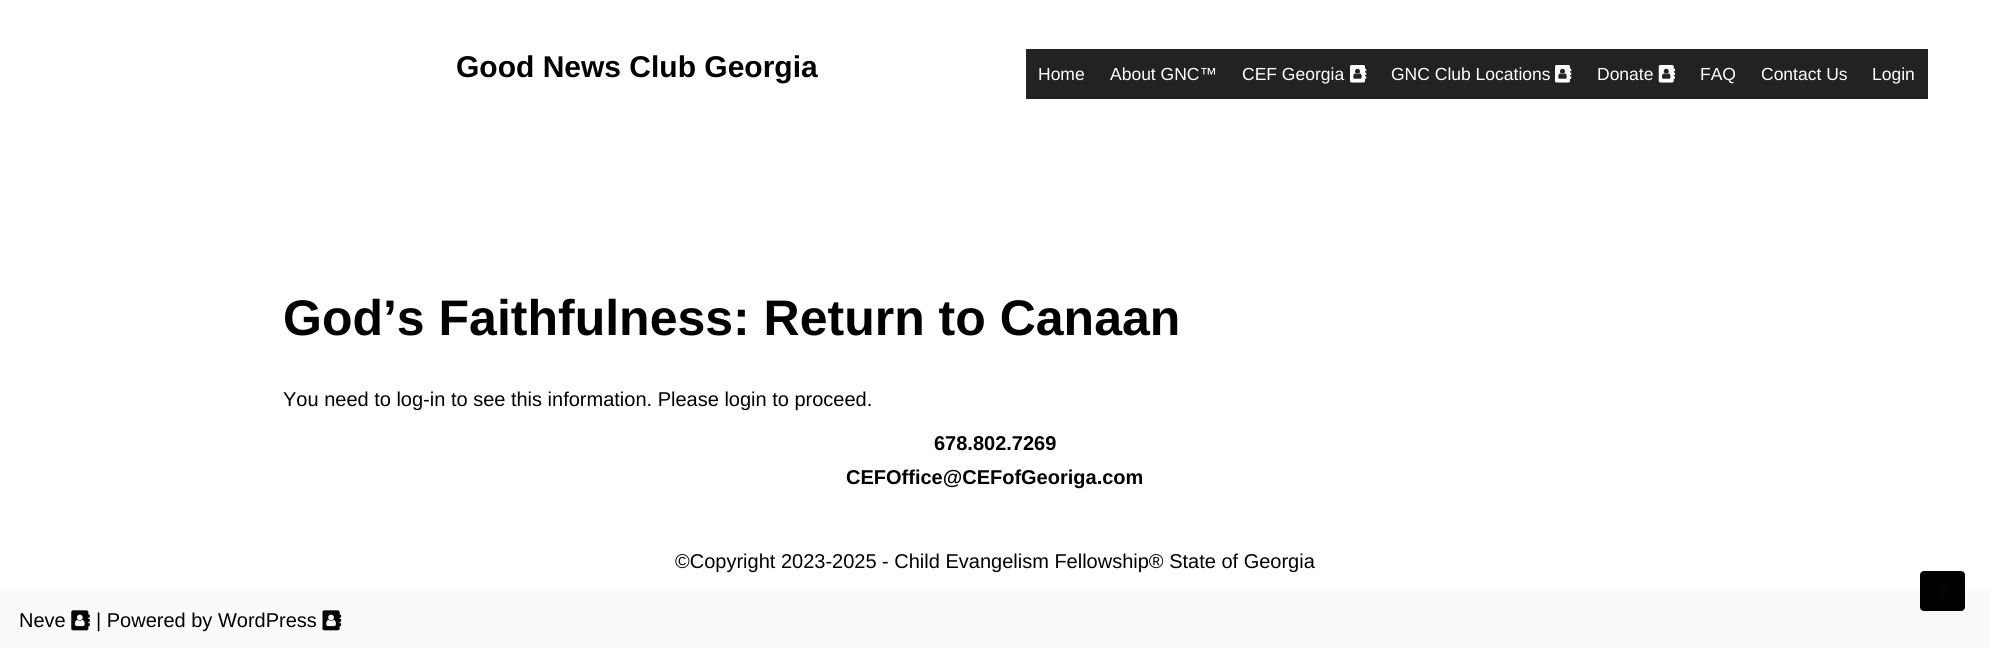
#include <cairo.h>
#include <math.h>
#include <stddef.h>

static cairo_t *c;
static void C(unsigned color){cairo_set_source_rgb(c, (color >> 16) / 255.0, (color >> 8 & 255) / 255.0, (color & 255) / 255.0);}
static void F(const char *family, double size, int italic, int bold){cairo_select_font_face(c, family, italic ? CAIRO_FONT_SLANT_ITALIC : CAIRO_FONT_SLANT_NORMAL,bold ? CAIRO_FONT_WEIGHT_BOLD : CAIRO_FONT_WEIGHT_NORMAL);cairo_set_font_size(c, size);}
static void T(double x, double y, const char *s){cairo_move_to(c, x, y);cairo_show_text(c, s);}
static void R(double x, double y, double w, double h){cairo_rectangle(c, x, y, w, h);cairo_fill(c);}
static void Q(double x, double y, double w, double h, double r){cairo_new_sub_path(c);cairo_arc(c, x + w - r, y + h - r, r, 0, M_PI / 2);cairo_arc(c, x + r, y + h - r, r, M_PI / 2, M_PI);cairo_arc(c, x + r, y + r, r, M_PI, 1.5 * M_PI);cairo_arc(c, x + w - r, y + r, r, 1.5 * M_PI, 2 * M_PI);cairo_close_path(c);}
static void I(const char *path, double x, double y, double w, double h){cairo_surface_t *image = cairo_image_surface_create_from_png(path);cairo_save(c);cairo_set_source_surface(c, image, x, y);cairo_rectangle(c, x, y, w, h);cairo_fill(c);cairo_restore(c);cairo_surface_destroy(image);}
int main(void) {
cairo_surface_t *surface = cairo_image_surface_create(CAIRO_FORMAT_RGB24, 1990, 648);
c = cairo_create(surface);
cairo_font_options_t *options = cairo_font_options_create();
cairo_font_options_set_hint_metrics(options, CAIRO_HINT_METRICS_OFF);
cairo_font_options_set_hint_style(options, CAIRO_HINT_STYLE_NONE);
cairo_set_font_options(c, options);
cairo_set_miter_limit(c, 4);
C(0xffffff);
cairo_paint(c);
F("Liberation Sans",30,0,1);
C(0x000000);
T(456,77,"Good News Club Georgia");
C(0x222222);
R(1026,49,902,50);
F("Liberation Sans",17.5,0,0);
C(0xffffff);
T(1038,80,"Home");
T(1110,80,"About GNC™");
T(1242,80,"CEF Georgia");
I("1.png",1350,65,17,18);
T(1391,80,"GNC Club Locations");
I("1.png",1555,65,17,18);
T(1597,80,"Donate");
I("2.png",1658,65,17,18);
T(1700,80,"FAQ");
T(1761,80,"Contact Us");
T(1872,80,"Login");
F("Liberation Sans",50,0,1);
C(0x000000);
T(283,335,"God’s Faithfulness: Return to Canaan");
F("Liberation Sans",20,0,0);
T(283,406,"You need to log-in to see this information. Please login to proceed.");
F("Liberation Sans",20,0,1);
T(934,450,"678.802.7269");
T(846,484,"CEFOffice@CEFofGeoriga.com");
F("Liberation Sans",20,0,0);
T(675,568,"©Copyright 2023-2025 - Child Evangelism Fellowship® State of Georgia");
C(0xfafafa);
R(0,589,1990,59);
C(0x000000);
T(19,627,"Neve");
I("3.png",71,610,19,21);
T(96,627,"| Powered by WordPress");
I("4.png",322,610,20,21);
Q(1920,571,45,40,4);
cairo_fill(c);
I("5.png",1935,583,16,17);
cairo_surface_write_to_png(surface, "o.png");
cairo_font_options_destroy(options);
cairo_destroy(c);
cairo_surface_destroy(surface);
return 0;
}
